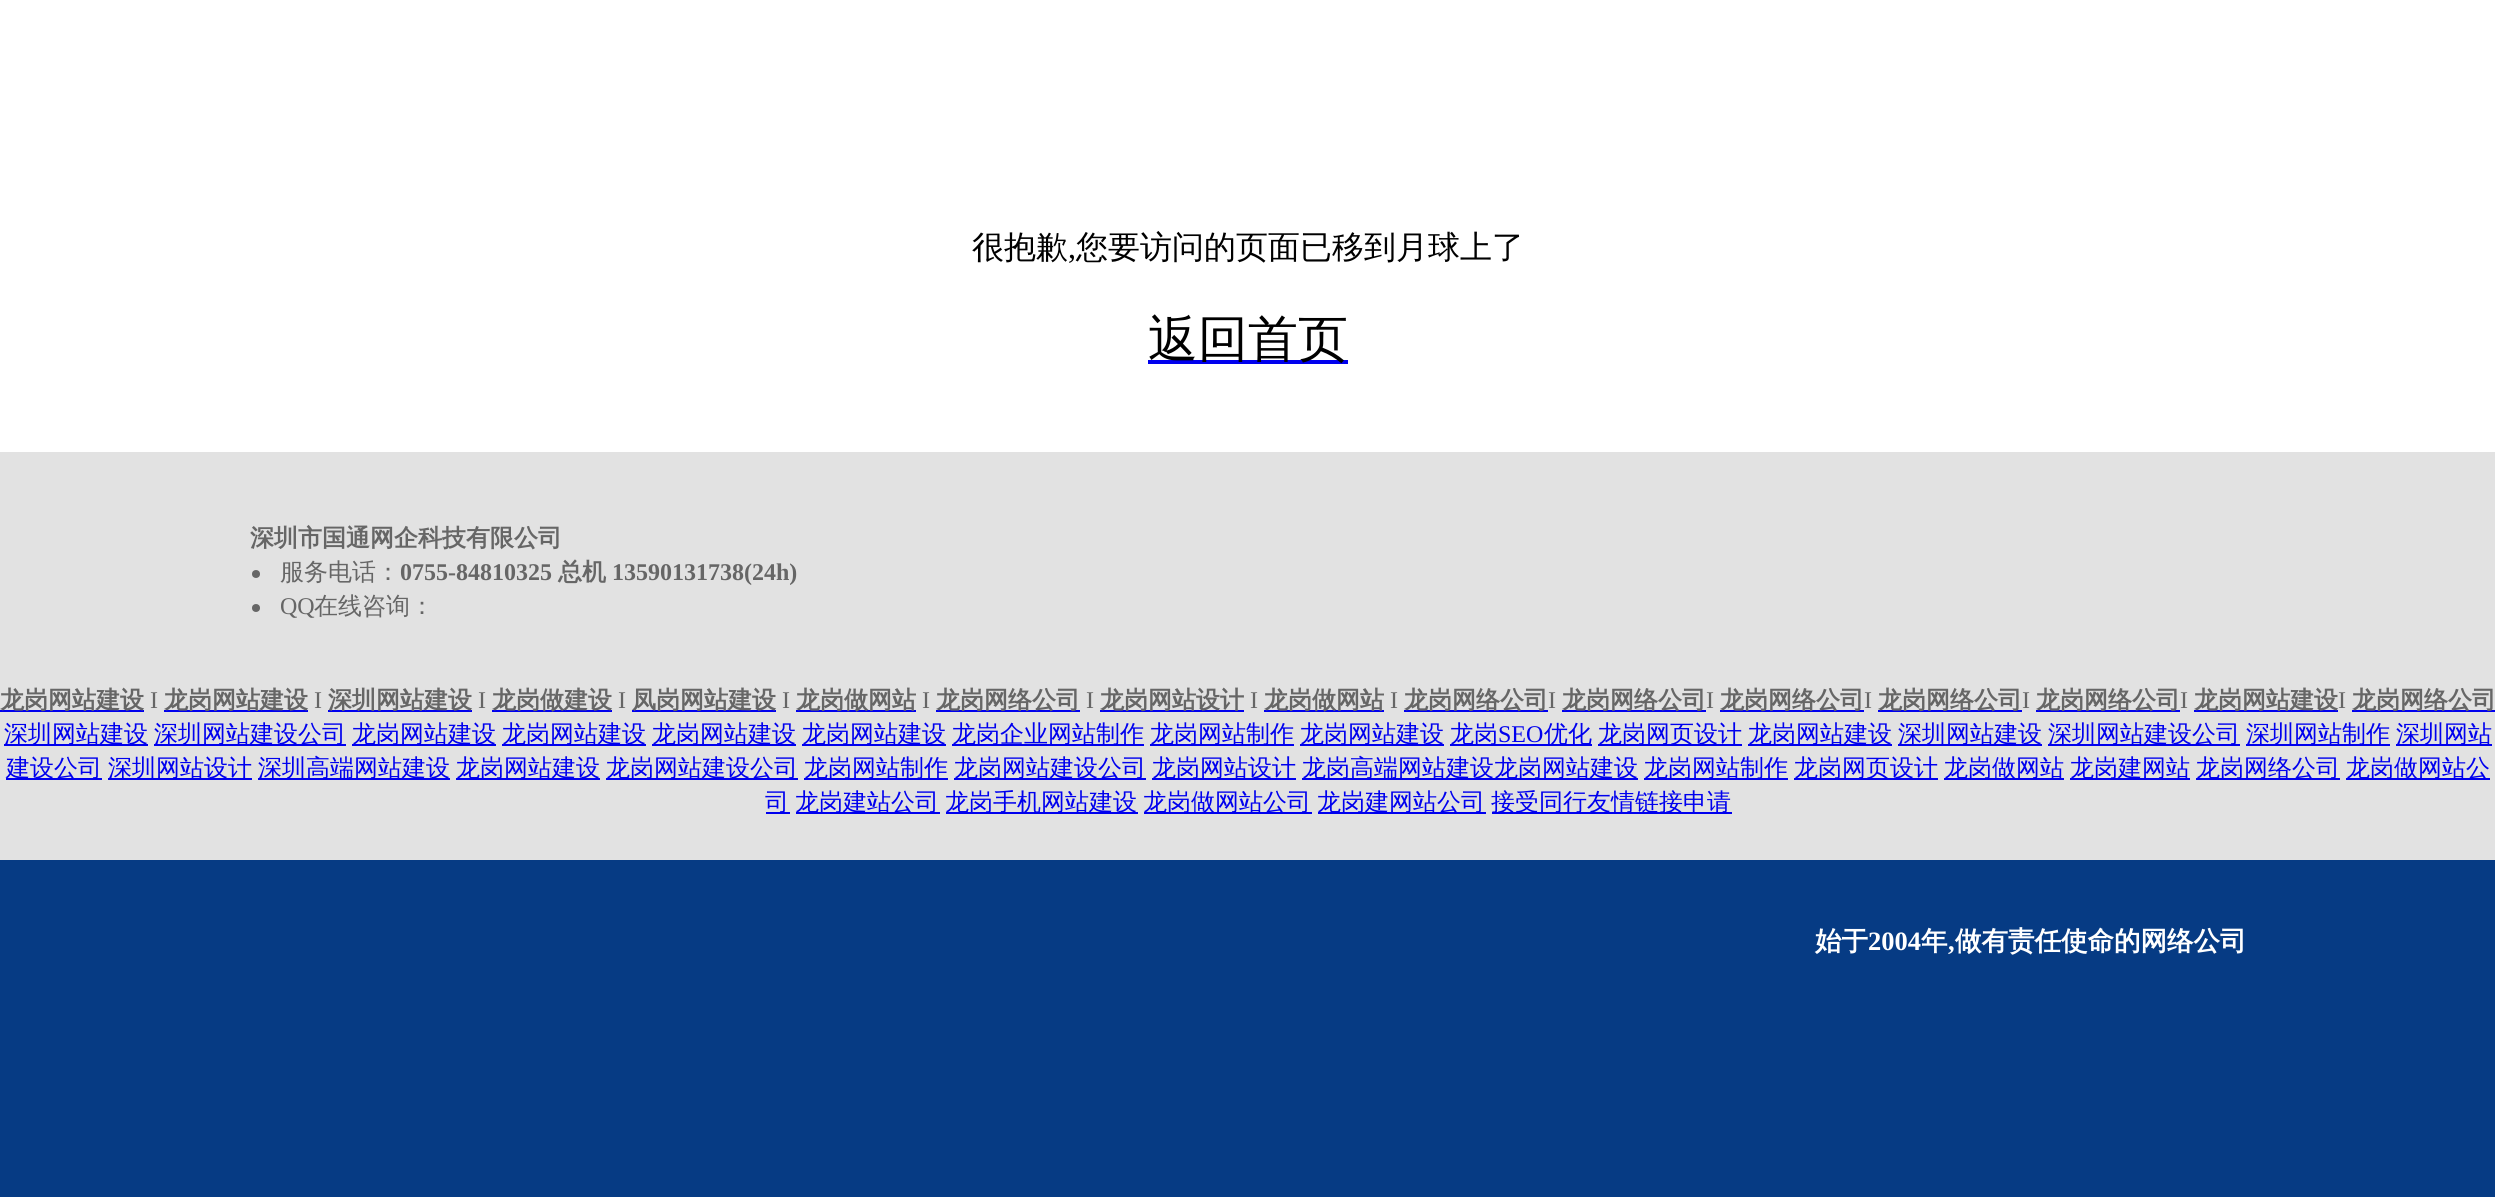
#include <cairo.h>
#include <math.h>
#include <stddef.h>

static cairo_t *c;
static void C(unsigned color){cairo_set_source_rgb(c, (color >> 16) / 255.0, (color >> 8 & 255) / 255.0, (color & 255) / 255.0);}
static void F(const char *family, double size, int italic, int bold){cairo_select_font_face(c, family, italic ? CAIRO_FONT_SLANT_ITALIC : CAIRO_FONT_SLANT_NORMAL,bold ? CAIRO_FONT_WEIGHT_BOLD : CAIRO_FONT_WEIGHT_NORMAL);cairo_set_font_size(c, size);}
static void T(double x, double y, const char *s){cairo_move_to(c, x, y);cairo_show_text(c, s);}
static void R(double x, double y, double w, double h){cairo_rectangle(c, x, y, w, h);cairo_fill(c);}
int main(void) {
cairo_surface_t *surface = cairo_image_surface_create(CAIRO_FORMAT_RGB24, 2495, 1197);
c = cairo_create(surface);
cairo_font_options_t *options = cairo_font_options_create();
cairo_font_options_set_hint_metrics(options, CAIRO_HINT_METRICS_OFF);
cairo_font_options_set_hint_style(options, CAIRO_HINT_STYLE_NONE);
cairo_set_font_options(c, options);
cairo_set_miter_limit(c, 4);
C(0x063b84);
cairo_paint(c);
C(0xffffff);
R(0,0,2495,452);
F("WenQuanYi Zen Hei Medium",32,0,0);
C(0x000000);
T(972,258,"很抱歉");
F("Liberation Serif",32,0,0);
T(1068,258,",");
F("WenQuanYi Zen Hei Medium",32,0,0);
T(1076,258,"您要访问的页面已移到月球上了");
C(0x0000ee);
R(1148,360,200,4);
F("WenQuanYi Zen Hei Medium",50,0,0);
C(0x000000);
T(1148,356,"返回首页");
C(0xe2e2e2);
R(0,452,2495,408);
F("WenQuanYi Zen Hei",24,0,1);
C(0x666666);
T(250,546,"深圳市国通网企科技有限公司");
cairo_new_path(c);
cairo_arc(c,256,574,4,0,2 * M_PI);
cairo_fill(c);
F("WenQuanYi Zen Hei Medium",24,0,0);
T(280,580,"服务电话：");
F("Liberation Serif",24,0,1);
T(400,580,"0755-84810325");
F("WenQuanYi Zen Hei",24,0,1);
T(558,580,"总机");
F("Liberation Serif",24,0,1);
T(612,580,"13590131738(24h)");
cairo_new_path(c);
cairo_arc(c,256,608,4,0,2 * M_PI);
cairo_fill(c);
F("Liberation Serif",24,0,0);
T(280,614,"QQ");
F("WenQuanYi Zen Hei Medium",24,0,0);
T(314,614,"在线咨询：");
C(0x0000ee);
R(0,710,144,2);
F("WenQuanYi Zen Hei",24,0,1);
C(0x666666);
T(0,708,"龙岗网站建设");
F("Liberation Serif",24,0,0);
T(150,708,"I");
C(0x0000ee);
R(164,710,144,2);
F("WenQuanYi Zen Hei",24,0,1);
C(0x666666);
T(164,708,"龙岗网站建设");
F("Liberation Serif",24,0,0);
T(314,708,"I");
C(0x0000ee);
R(328,710,144,2);
F("WenQuanYi Zen Hei",24,0,1);
C(0x666666);
T(328,708,"深圳网站建设");
F("Liberation Serif",24,0,0);
T(478,708,"I");
C(0x0000ee);
R(492,710,120,2);
F("WenQuanYi Zen Hei",24,0,1);
C(0x666666);
T(492,708,"龙岗做建设");
F("Liberation Serif",24,0,0);
T(618,708,"I");
C(0x0000ee);
R(632,710,144,2);
F("WenQuanYi Zen Hei",24,0,1);
C(0x666666);
T(632,708,"凤岗网站建设");
F("Liberation Serif",24,0,0);
T(782,708,"I");
C(0x0000ee);
R(796,710,120,2);
F("WenQuanYi Zen Hei",24,0,1);
C(0x666666);
T(796,708,"龙岗做网站");
F("Liberation Serif",24,0,0);
T(922,708,"I");
C(0x0000ee);
R(936,710,144,2);
F("WenQuanYi Zen Hei",24,0,1);
C(0x666666);
T(936,708,"龙岗网络公司");
F("Liberation Serif",24,0,0);
T(1086,708,"I");
C(0x0000ee);
R(1100,710,144,2);
F("WenQuanYi Zen Hei",24,0,1);
C(0x666666);
T(1100,708,"龙岗网站设计");
F("Liberation Serif",24,0,0);
T(1250,708,"I");
C(0x0000ee);
R(1264,710,120,2);
F("WenQuanYi Zen Hei",24,0,1);
C(0x666666);
T(1264,708,"龙岗做网站");
F("Liberation Serif",24,0,0);
T(1390,708,"I");
C(0x0000ee);
R(1404,710,144,2);
F("WenQuanYi Zen Hei",24,0,1);
C(0x666666);
T(1404,708,"龙岗网络公司");
F("Liberation Serif",24,0,0);
T(1548,708,"I");
C(0x0000ee);
R(1562,710,144,2);
F("WenQuanYi Zen Hei",24,0,1);
C(0x666666);
T(1562,708,"龙岗网络公司");
F("Liberation Serif",24,0,0);
T(1706,708,"I");
C(0x0000ee);
R(1720,710,144,2);
F("WenQuanYi Zen Hei",24,0,1);
C(0x666666);
T(1720,708,"龙岗网络公司");
F("Liberation Serif",24,0,0);
T(1864,708,"I");
C(0x0000ee);
R(1878,710,144,2);
F("WenQuanYi Zen Hei",24,0,1);
C(0x666666);
T(1878,708,"龙岗网络公司");
F("Liberation Serif",24,0,0);
T(2022,708,"I");
C(0x0000ee);
R(2036,710,144,2);
F("WenQuanYi Zen Hei",24,0,1);
C(0x666666);
T(2036,708,"龙岗网络公司");
F("Liberation Serif",24,0,0);
T(2180,708,"I");
C(0x0000ee);
R(2194,710,144,2);
F("WenQuanYi Zen Hei",24,0,1);
C(0x666666);
T(2194,708,"龙岗网站建设");
F("Liberation Serif",24,0,0);
T(2338,708,"I");
C(0x0000ee);
R(2352,710,143,2);
F("WenQuanYi Zen Hei",24,0,1);
C(0x666666);
T(2352,708,"龙岗网络公司");
C(0x0000ee);
R(4,744,144,2);
F("WenQuanYi Zen Hei Medium",24,0,0);
T(4,742,"深圳网站建设");
R(154,744,192,2);
T(154,742,"深圳网站建设公司");
R(352,744,144,2);
T(352,742,"龙岗网站建设");
R(502,744,144,2);
T(502,742,"龙岗网站建设");
R(652,744,144,2);
T(652,742,"龙岗网站建设");
R(802,744,144,2);
T(802,742,"龙岗网站建设");
R(952,744,192,2);
T(952,742,"龙岗企业网站制作");
R(1150,744,144,2);
T(1150,742,"龙岗网站制作");
R(1300,744,144,2);
T(1300,742,"龙岗网站建设");
R(1450,744,142,2);
T(1450,742,"龙岗");
F("Liberation Serif",24,0,0);
T(1498,742,"SEO");
F("WenQuanYi Zen Hei Medium",24,0,0);
T(1544,742,"优化");
R(1598,744,144,2);
T(1598,742,"龙岗网页设计");
R(1748,744,144,2);
T(1748,742,"龙岗网站建设");
R(1898,744,144,2);
T(1898,742,"深圳网站建设");
R(2048,744,192,2);
T(2048,742,"深圳网站建设公司");
R(2246,744,144,2);
T(2246,742,"深圳网站制作");
R(2396,744,96,2);
T(2396,742,"深圳网站");
R(6,778,96,2);
T(6,776,"建设公司");
R(108,778,144,2);
T(108,776,"深圳网站设计");
R(258,778,192,2);
T(258,776,"深圳高端网站建设");
R(456,778,144,2);
T(456,776,"龙岗网站建设");
R(606,778,192,2);
T(606,776,"龙岗网站建设公司");
R(804,778,144,2);
T(804,776,"龙岗网站制作");
R(954,778,192,2);
T(954,776,"龙岗网站建设公司");
R(1152,778,144,2);
T(1152,776,"龙岗网站设计");
R(1302,778,336,2);
T(1302,776,"龙岗高端网站建设龙岗网站建设");
R(1644,778,144,2);
T(1644,776,"龙岗网站制作");
R(1794,778,144,2);
T(1794,776,"龙岗网页设计");
R(1944,778,120,2);
T(1944,776,"龙岗做网站");
R(2070,778,120,2);
T(2070,776,"龙岗建网站");
R(2196,778,144,2);
T(2196,776,"龙岗网络公司");
R(2346,778,144,2);
T(2346,776,"龙岗做网站公");
R(766,812,24,2);
T(765,810,"司");
R(796,812,144,2);
T(795,810,"龙岗建站公司");
R(946,812,192,2);
T(945,810,"龙岗手机网站建设");
R(1144,812,168,2);
T(1143,810,"龙岗做网站公司");
R(1318,812,168,2);
T(1317,810,"龙岗建网站公司");
R(1492,812,240,2);
T(1491,810,"接受同行友情链接申请");
F("WenQuanYi Zen Hei",26.5,0,1);
C(0xffffff);
T(1815,950,"始于");
F("Liberation Serif",26.5,0,1);
T(1868,950,"2004");
F("WenQuanYi Zen Hei",26.5,0,1);
T(1921,950,"年");
F("Liberation Serif",26.5,0,1);
T(1948,950,",");
F("WenQuanYi Zen Hei",26.5,0,1);
T(1955,950,"做有责任使命的网络公司");
cairo_surface_write_to_png(surface, "o.png");
cairo_font_options_destroy(options);
cairo_destroy(c);
cairo_surface_destroy(surface);
return 0;
}
